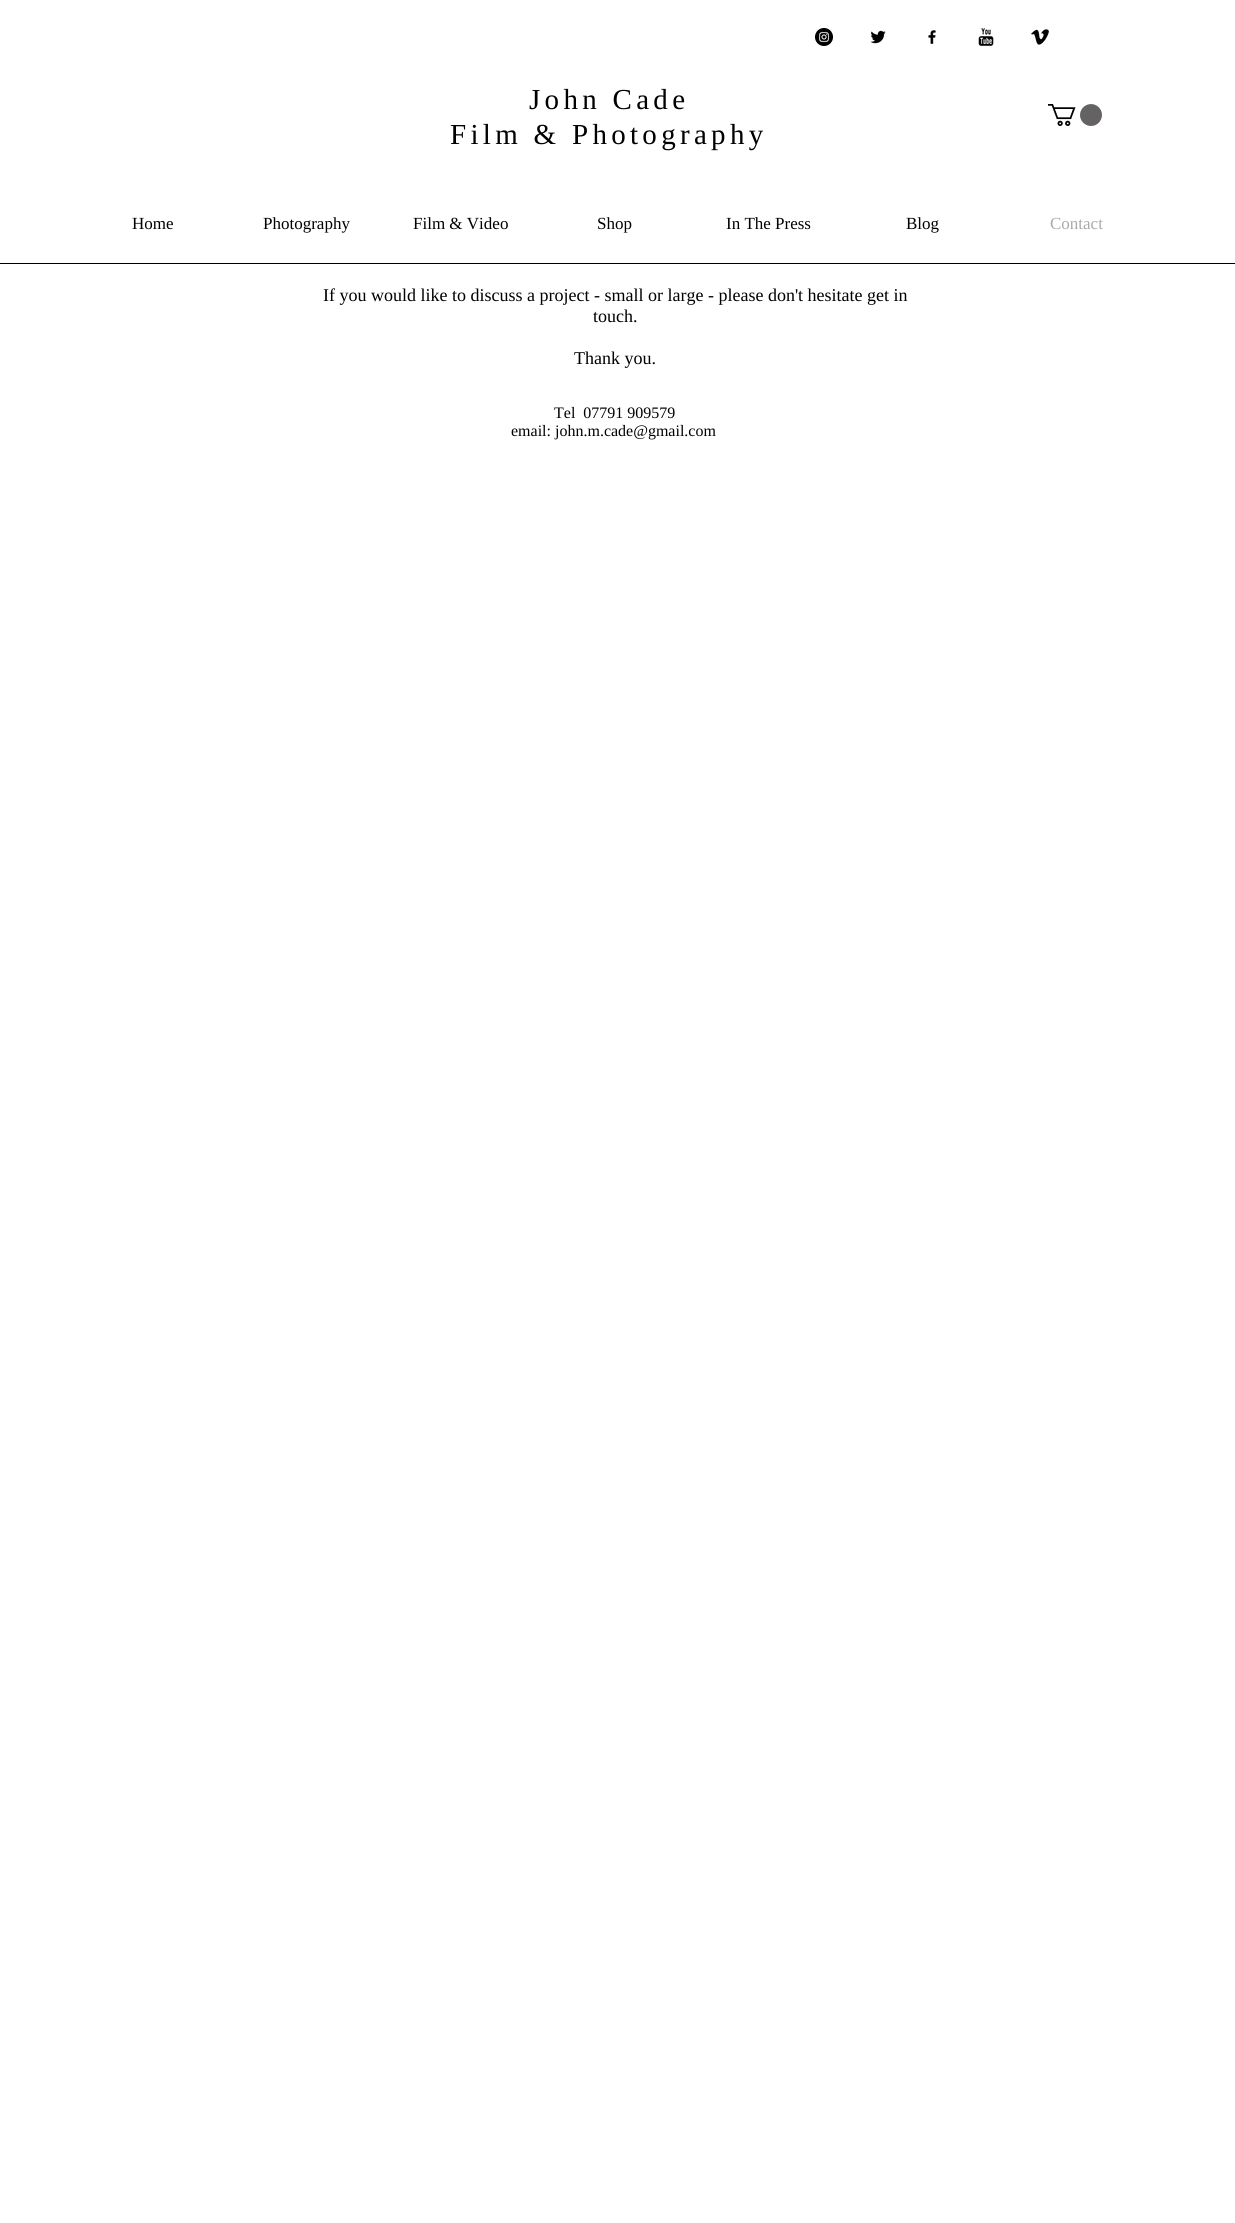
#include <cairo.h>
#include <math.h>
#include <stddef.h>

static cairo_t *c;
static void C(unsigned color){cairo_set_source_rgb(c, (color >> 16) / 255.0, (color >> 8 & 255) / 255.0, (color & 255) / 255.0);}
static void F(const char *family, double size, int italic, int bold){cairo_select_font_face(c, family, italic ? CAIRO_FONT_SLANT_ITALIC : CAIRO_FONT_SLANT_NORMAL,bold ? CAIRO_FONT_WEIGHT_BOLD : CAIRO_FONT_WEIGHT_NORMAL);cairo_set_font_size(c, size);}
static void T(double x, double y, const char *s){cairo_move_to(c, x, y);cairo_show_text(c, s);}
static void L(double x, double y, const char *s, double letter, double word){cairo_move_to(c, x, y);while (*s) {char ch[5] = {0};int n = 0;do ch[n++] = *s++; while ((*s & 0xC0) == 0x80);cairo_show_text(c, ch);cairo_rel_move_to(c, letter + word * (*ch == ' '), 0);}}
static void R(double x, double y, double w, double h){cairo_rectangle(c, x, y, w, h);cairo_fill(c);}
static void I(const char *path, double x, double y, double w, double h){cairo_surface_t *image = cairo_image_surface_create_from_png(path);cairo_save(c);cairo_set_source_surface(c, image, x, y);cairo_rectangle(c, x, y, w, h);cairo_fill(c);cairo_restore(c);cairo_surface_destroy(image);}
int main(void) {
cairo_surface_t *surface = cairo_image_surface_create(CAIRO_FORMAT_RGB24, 1235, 2223);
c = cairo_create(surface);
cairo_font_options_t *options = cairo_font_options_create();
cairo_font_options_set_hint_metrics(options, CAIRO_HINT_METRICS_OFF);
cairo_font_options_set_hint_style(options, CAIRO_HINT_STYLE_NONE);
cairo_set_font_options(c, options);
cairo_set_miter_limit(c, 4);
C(0xffffff);
cairo_paint(c);
I("1.png",815,28,18,18);
I("2.png",870,30,16,14);
I("3.png",928,30,8,14);
I("4.png",978,28,16,18);
I("5.png",1031,29,18,16);
F("Liberation Serif",29,0,0);
C(0x000000);
L(529,109,"John Cade",4.3,0);
L(450,144,"Film & Photography",4.3,0);
I("6.png",1048,104,54,22);
F("Liberation Serif",17,0,0);
T(132,229,"Home");
T(263,229,"Photography");
T(413,229,"Film & Video");
T(597,229,"Shop");
T(726,229,"In The Press");
T(906,229,"Blog");
C(0xaaaaaa);
T(1050,229,"Contact");
C(0x000000);
R(0,263,1235,1);
F("Liberation Serif",18,0,0);
T(323,301,"If you would like to discuss a project - small or large - please don't hesitate get in");
T(593,322,"touch.");
T(574,364,"Thank you.");
F("Liberation Serif",16,0,0);
T(554,418,"Tel  07791 909579");
T(511,436,"email: john.m.cade@gmail.com");
cairo_surface_write_to_png(surface, "o.png");
cairo_font_options_destroy(options);
cairo_destroy(c);
cairo_surface_destroy(surface);
return 0;
}
